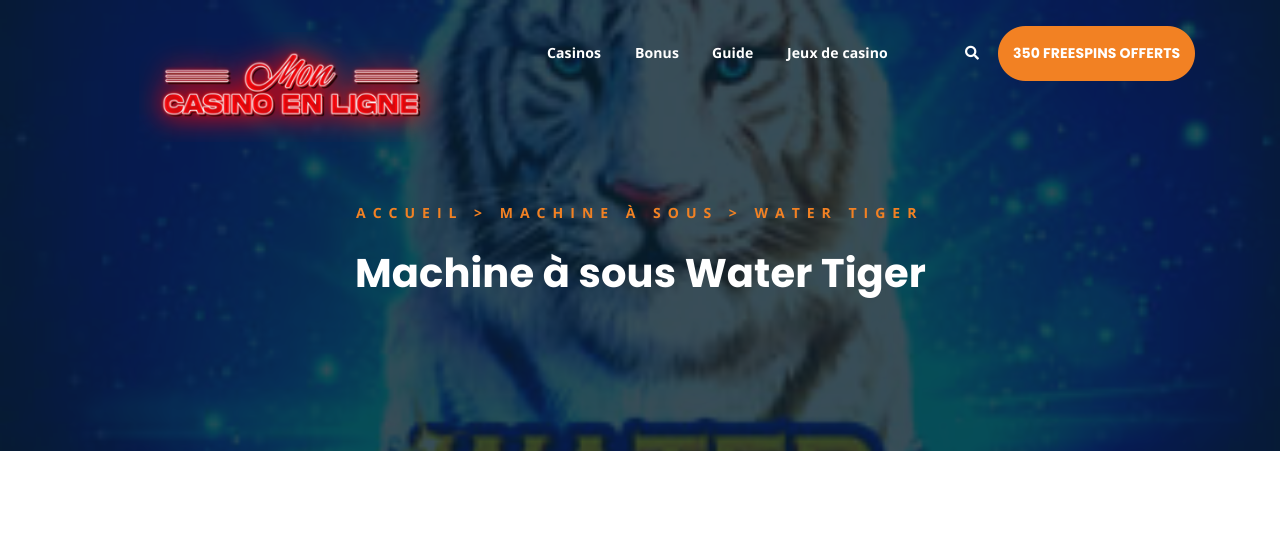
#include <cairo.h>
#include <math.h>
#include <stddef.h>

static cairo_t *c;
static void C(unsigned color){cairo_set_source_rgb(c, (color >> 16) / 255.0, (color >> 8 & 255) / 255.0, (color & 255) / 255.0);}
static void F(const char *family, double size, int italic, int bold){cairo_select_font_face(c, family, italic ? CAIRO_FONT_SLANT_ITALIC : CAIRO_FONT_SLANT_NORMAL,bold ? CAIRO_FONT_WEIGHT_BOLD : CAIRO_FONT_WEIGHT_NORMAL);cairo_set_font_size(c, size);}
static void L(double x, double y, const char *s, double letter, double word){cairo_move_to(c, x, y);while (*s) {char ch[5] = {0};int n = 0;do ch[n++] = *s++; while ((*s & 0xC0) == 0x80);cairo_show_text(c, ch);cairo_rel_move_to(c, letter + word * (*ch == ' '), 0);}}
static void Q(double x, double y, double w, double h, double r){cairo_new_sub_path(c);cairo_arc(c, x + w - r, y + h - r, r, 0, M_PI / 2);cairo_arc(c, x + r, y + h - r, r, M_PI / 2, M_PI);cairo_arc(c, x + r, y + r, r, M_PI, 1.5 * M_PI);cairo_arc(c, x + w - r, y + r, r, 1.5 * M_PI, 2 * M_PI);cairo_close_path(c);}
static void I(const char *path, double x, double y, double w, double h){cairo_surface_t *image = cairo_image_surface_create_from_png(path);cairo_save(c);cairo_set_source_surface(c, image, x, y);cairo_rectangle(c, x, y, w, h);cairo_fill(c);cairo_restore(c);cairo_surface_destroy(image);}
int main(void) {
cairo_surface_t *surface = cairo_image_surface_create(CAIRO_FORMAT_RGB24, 1280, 537);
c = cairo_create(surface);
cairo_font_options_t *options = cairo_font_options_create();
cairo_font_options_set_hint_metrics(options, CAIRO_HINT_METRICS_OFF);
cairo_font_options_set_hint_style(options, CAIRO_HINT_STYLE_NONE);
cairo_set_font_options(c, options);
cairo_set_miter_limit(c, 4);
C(0xffffff);
cairo_paint(c);
I("3.png",0,0,1280,451);
I("1.png",139,32,304,110);
F("Open Sans",14,0,1);
C(0xffffff);
L(547,58,"Casinos",.1,0);
L(635,58,"Bonus",.1,0);
L(712,58,"Guide",.1,0);
L(787,58,"Jeux de casino",.1,0);
I("2.png",965,45,14,15);
C(0xf28123);
Q(998,26,197,55,27.5);
cairo_fill(c);
F("Poppins",14,0,1);
C(0xffffff);
L(1013,58,"350 FREESPINS OFFERTS",.1,0);
F("Open Sans",14,0,1);
C(0xf28123);
L(356,218,"ACCUEIL > MACHINE À SOUS > WATER TIGER",7,0);
F("Poppins",40,0,1);
C(0xffffff);
L(355,287,"Machine à sous Water Tiger",.1,0);
cairo_surface_write_to_png(surface, "o.png");
cairo_font_options_destroy(options);
cairo_destroy(c);
cairo_surface_destroy(surface);
return 0;
}
